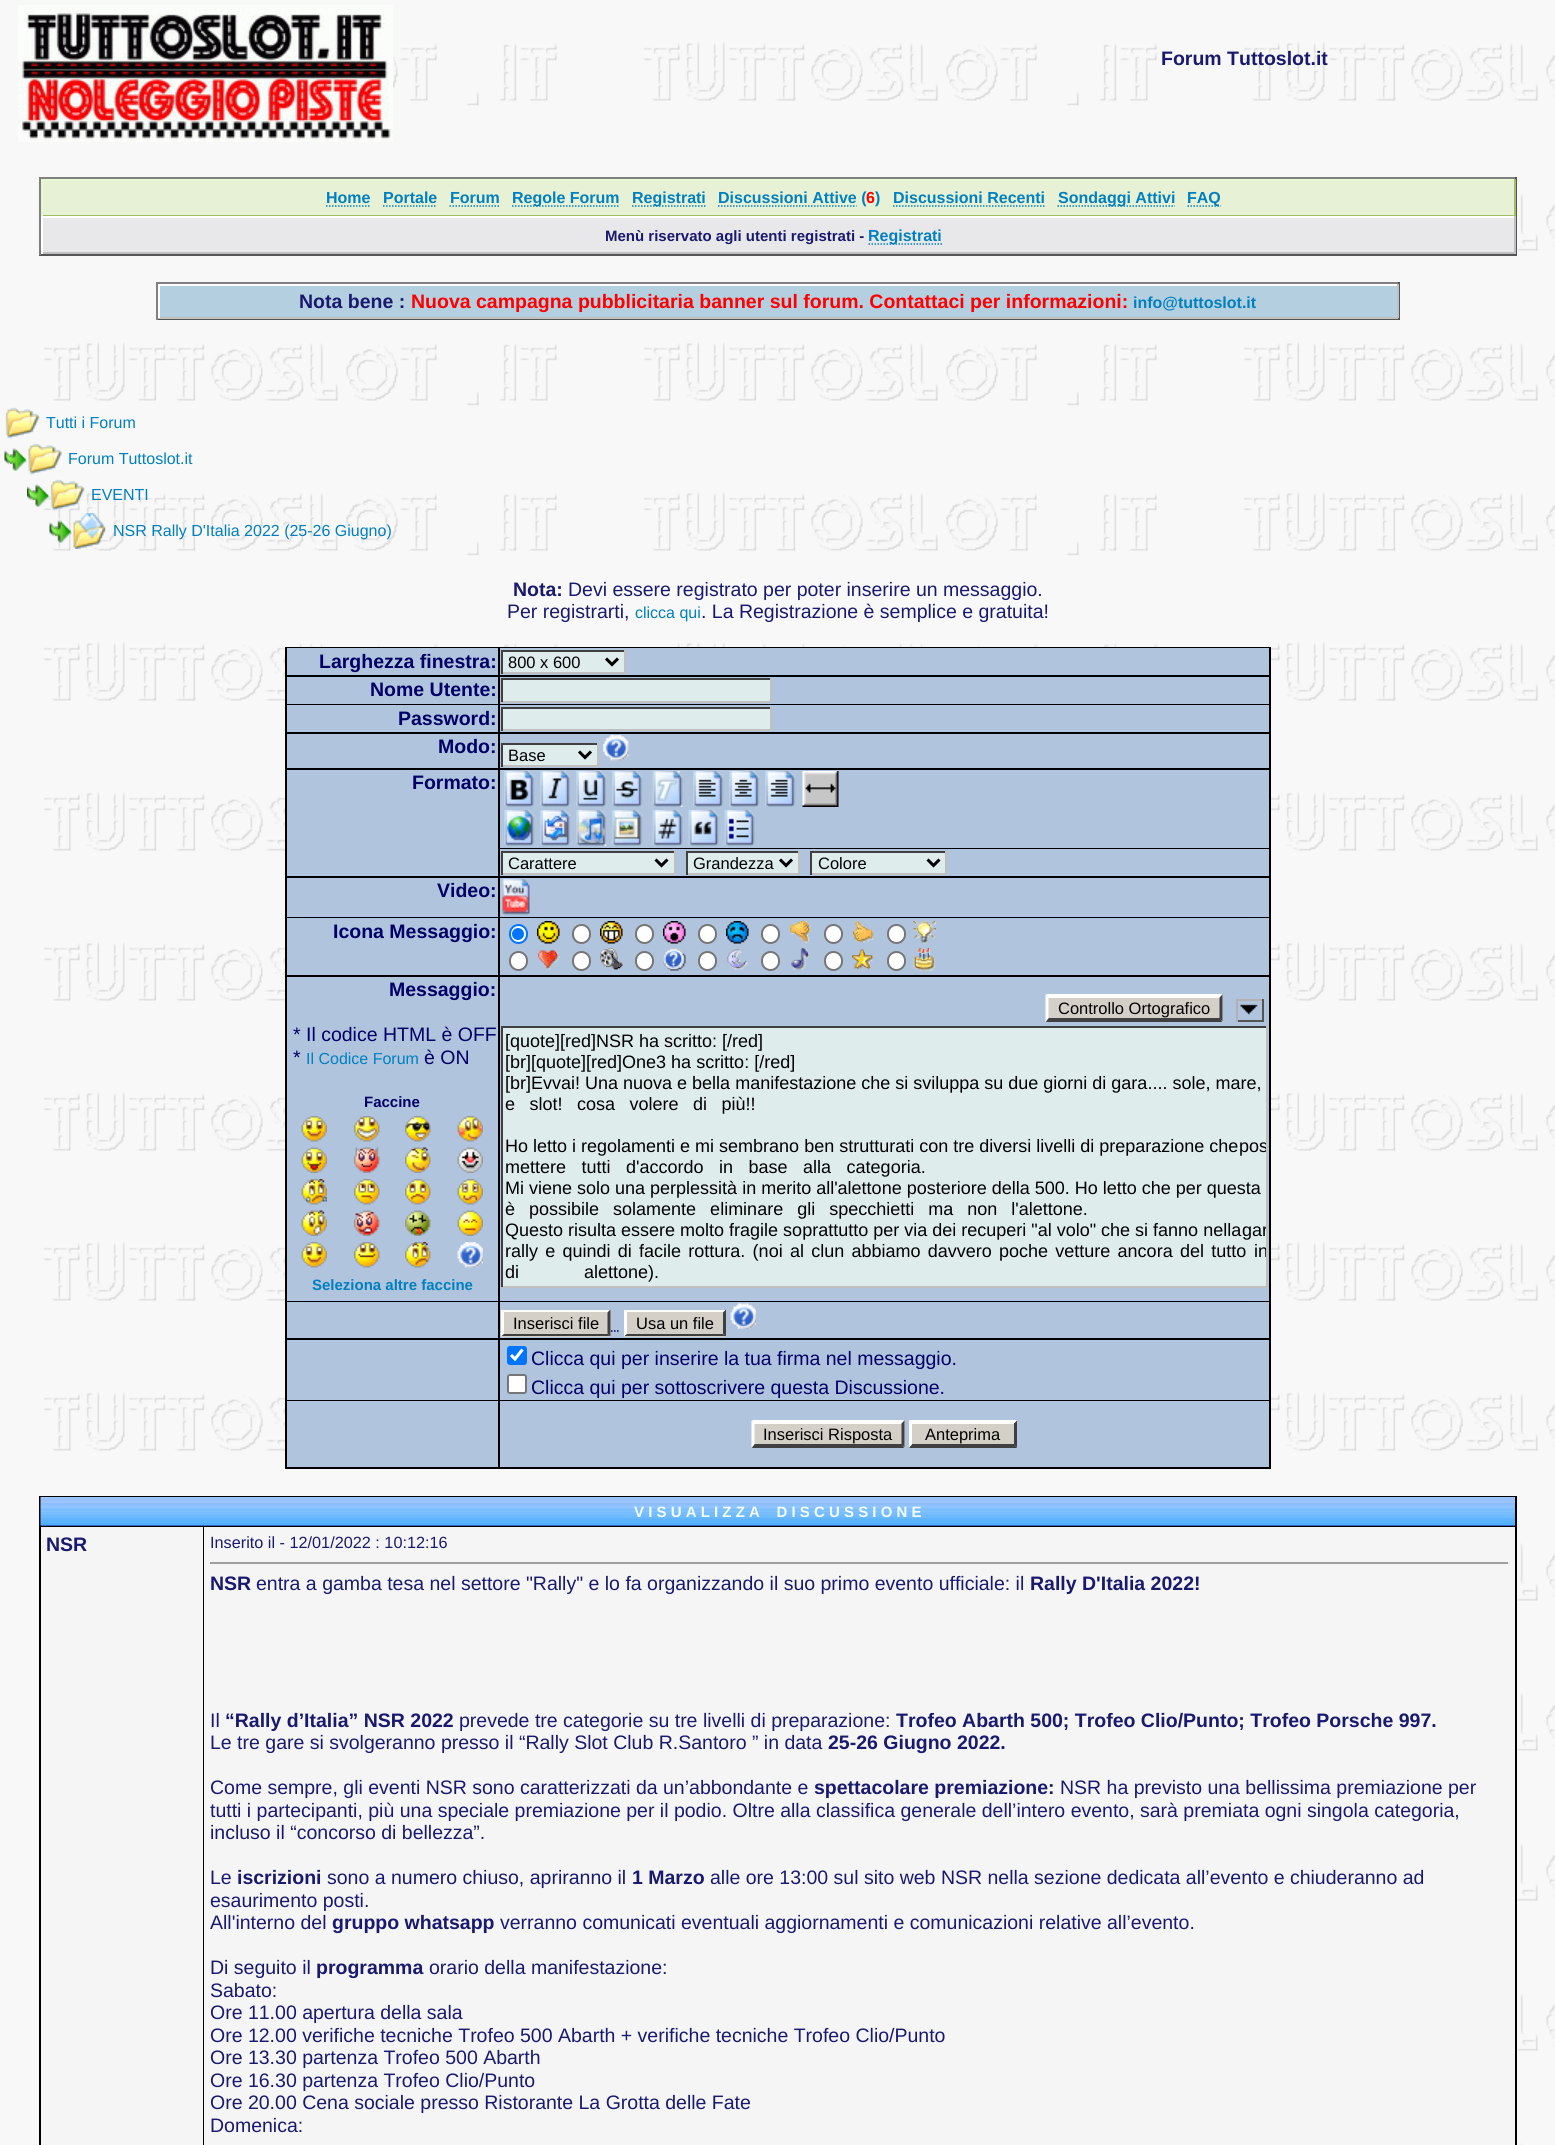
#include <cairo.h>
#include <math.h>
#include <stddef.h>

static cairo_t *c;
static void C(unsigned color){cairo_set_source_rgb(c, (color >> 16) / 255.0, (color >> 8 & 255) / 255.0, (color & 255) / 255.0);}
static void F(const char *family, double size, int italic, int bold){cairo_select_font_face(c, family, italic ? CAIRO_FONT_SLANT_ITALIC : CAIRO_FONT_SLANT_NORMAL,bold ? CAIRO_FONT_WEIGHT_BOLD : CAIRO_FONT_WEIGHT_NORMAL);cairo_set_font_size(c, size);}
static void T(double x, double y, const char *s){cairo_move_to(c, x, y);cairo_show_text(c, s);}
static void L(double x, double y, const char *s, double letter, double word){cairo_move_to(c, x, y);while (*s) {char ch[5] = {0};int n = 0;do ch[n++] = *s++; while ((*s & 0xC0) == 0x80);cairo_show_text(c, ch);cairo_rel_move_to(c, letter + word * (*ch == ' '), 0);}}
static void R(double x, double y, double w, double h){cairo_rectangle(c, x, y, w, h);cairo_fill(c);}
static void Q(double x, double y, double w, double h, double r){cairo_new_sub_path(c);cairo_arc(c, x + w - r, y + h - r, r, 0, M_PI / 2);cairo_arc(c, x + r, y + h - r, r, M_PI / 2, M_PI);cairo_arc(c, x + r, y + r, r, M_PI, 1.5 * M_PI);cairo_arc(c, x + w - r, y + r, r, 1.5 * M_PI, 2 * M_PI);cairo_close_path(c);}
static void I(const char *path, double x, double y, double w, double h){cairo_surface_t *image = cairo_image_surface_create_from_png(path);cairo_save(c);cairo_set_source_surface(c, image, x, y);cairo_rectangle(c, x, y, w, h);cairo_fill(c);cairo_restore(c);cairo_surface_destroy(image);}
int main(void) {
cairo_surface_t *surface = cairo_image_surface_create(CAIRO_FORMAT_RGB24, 1555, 2145);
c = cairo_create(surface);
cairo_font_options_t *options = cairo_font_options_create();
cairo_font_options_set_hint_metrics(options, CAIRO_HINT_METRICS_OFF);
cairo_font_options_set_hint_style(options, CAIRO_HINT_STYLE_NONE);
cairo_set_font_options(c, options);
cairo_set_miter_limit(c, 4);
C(0xffffff);
cairo_paint(c);
I("1.png",0,0,1555,2145);
I("2.png",18,5,375,137);
F("Liberation Sans",19.5,0,1);
C(0x191970);
T(1161,65,"Forum Tuttoslot.it");
C(0x808080);
R(39,177,1478,2);
C(0x555555);
R(1515,177,2,78);
R(39,254,1478,2);
C(0x808080);
R(39,177,2,78);
C(0xe7f1d5);
R(43,181,1471,34);
C(0xe7f8d2);
R(41,179,1474,2);
C(0xa2be65);
R(1514,179,2,37);
R(41,215,1474,1);
C(0xe7f8d2);
R(41,179,2,37);
F("Liberation Sans",16,0,1);
C(0x0080c0);
T(326,203,"Home");
cairo_new_path(c);
cairo_move_to(c,326,206);
cairo_line_to(c,370.5,206);
cairo_set_line_width(c,1.5);
cairo_set_dash(c,(double[]){1.5,1.5},2,0);
cairo_stroke(c);
T(383,203,"Portale");
cairo_new_path(c);
cairo_move_to(c,383,206);
cairo_line_to(c,437,206);
cairo_stroke(c);
T(450,203,"Forum");
cairo_new_path(c);
cairo_move_to(c,449.5,206);
cairo_line_to(c,499.5,206);
cairo_stroke(c);
cairo_new_path(c);
cairo_move_to(c,512,206);
cairo_line_to(c,619.5,206);
cairo_stroke(c);
T(512,203,"Regole Forum");
cairo_new_path(c);
cairo_move_to(c,632,206);
cairo_line_to(c,705.5,206);
cairo_stroke(c);
T(632,203,"Registrati");
cairo_new_path(c);
cairo_move_to(c,718,206);
cairo_line_to(c,856.5,206);
cairo_stroke(c);
T(718,203,"Discussioni Attive (");
C(0xff0000);
T(866,203,"6");
C(0x0080c0);
T(875,203,")");
T(893,203,"Discussioni Recenti");
cairo_new_path(c);
cairo_move_to(c,893,206);
cairo_line_to(c,1045,206);
cairo_stroke(c);
cairo_new_path(c);
cairo_move_to(c,1057.5,206);
cairo_line_to(c,1175,206);
cairo_stroke(c);
T(1058,203,"Sondaggi Attivi");
cairo_new_path(c);
cairo_move_to(c,1187.5,206);
cairo_line_to(c,1221,206);
cairo_stroke(c);
T(1187,203,"FAQ");
C(0xe8e8eb);
R(43,218,1471,34);
C(0xffffff);
R(41,216,1474,2);
C(0xc0c0c0);
R(1514,216,2,38);
R(41,252,1474,2);
C(0xffffff);
R(41,216,2,38);
F("Liberation Sans",15,0,1);
C(0x191970);
T(605,241,"Menù riservato agli utenti registrati -");
cairo_new_path(c);
cairo_move_to(c,868.5,244);
cairo_line_to(c,942,244);
C(0x0080c0);
cairo_stroke(c);
F("Liberation Sans",16,0,1);
T(868,241,"Registrati");
C(0x808080);
R(156,282,1244,2);
C(0x555555);
R(1398,282,2,38);
R(156,318,1244,2);
C(0x808080);
R(156,282,2,38);
C(0xb4d0e0);
R(160,286,1237,31);
C(0xffffff);
R(158,284,1240,2);
C(0xc0c0c0);
R(1397,284,2,34);
R(158,317,1240,2);
C(0xffffff);
R(158,284,2,34);
F("Liberation Sans",19.5,0,1);
C(0x191970);
T(299,308,"Nota bene :");
C(0xff0000);
T(411,308,"Nuova campagna pubblicitaria banner sul forum. Contattaci per informazioni:");
F("Liberation Sans",16,0,1);
C(0x0080c0);
T(1133,308,"info@tuttoslot.it");
I("3.png",5,407,35,32);
F("Liberation Sans",16,0,0);
T(46,428,"Tutti i Forum");
I("4.png",4,448,23,23);
I("5.png",28,443,34,32);
T(68,464,"Forum Tuttoslot.it");
I("6.png",27,484,23,23);
I("7.png",50,479,35,32);
T(91,500,"EVENTI");
I("8.png",49,520,23,23);
I("9.png",73,513,33,36);
T(113,536,"NSR Rally D'Italia 2022 (25-26 Giugno)");
F("Liberation Sans",19.5,0,1);
C(0x191970);
T(513,596,"Nota:");
F("Liberation Sans",19.5,0,0);
T(568,596,"Devi essere registrato per poter inserire un messaggio.");
T(507,618,"Per registrarti,");
F("Liberation Sans",16,0,0);
C(0x0080c0);
T(635,618,"clicca qui");
F("Liberation Sans",19.5,0,0);
C(0x191970);
T(701,618,". La Registrazione è semplice e gratuita!");
C(0x000000);
R(285,647,986,822);
C(0xb0c4de);
R(287,648,211,27);
F("Liberation Sans",19.5,0,1);
C(0x000066);
T(319,668,"Larghezza finestra:");
C(0xb0c4de);
R(500,648,769,27);
C(0xdfecec);
R(503,652,121,20);
C(0x404040);
R(501,650,125,2);
C(0xc0c0c0);
R(624,650,2,24);
R(501,672,125,2);
C(0x404040);
R(501,650,2,24);
cairo_new_path(c);
cairo_move_to(c,606,658.5);
cairo_line_to(c,612,664.5);
cairo_line_to(c,618,658.5);
C(0x000000);
cairo_set_line_width(c,3);
cairo_set_dash(c,NULL,0,0);
cairo_stroke(c);
F("Liberation Sans",16.5,0,0);
T(508,668,"800 x 600");
C(0xb0c4de);
R(287,677,211,27);
F("Liberation Sans",19.5,0,1);
C(0x000066);
T(370,696,"Nome Utente:");
C(0xb0c4de);
R(500,677,769,27);
C(0xdfecec);
R(503,680,267,21);
C(0x404040);
R(501,678,270,2);
C(0xc0c0c0);
R(770,678,2,24);
R(501,701,270,2);
C(0x404040);
R(501,678,2,24);
C(0xb0c4de);
R(287,705,211,27);
C(0x000066);
T(398,725,"Password:");
C(0xb0c4de);
R(500,705,769,27);
C(0xdfecec);
R(503,709,267,20);
C(0x404040);
R(501,707,270,2);
C(0xc0c0c0);
R(770,707,2,24);
R(501,729,270,2);
C(0x404040);
R(501,707,2,24);
C(0xb0c4de);
R(287,734,211,34);
C(0x000066);
T(438,753,"Modo:");
C(0xb0c4de);
R(500,734,769,34);
C(0xdfecec);
R(503,745,94,20);
C(0x404040);
R(501,743,98,2);
C(0xc0c0c0);
R(597,743,2,24);
R(501,765,98,2);
C(0x404040);
R(501,743,2,24);
cairo_new_path(c);
cairo_move_to(c,579,751.5);
cairo_line_to(c,585,757.5);
cairo_line_to(c,591,751.5);
C(0x000000);
cairo_stroke(c);
F("Liberation Sans",16.5,0,0);
T(508,761,"Base");
I("10.png",603,735,26,26);
C(0xb0c4de);
R(287,770,211,106);
F("Liberation Sans",19.5,0,1);
C(0x000066);
T(412,789,"Formato:");
C(0xb0c4de);
R(500,770,769,78);
I("11.png",503,771,32,36);
I("12.png",540,771,31,36);
I("13.png",576,771,31,36);
I("14.png",612,771,31,36);
I("15.png",652,771,31,36);
I("16.png",693,771,31,36);
I("17.png",729,771,31,36);
I("18.png",765,771,31,36);
I("19.png",802,771,37,36);
I("20.png",504,810,31,36);
I("21.png",540,810,31,36);
I("22.png",576,810,31,36);
I("23.png",611,810,32,36);
I("24.png",652,810,31,36);
I("25.png",688,810,31,36);
I("26.png",724,810,31,36);
R(500,849,769,27);
C(0xdfecec);
R(503,853,171,20);
C(0x404040);
R(501,851,174,2);
C(0xc0c0c0);
R(674,851,2,24);
R(501,873,174,2);
C(0x404040);
R(501,851,2,24);
cairo_new_path(c);
cairo_move_to(c,655.5,859.5);
cairo_line_to(c,661.5,865.5);
cairo_line_to(c,667.5,859.5);
C(0x000000);
cairo_stroke(c);
F("Liberation Sans",16.5,0,0);
T(508,869,"Carattere");
C(0xdfecec);
R(688,853,110,20);
C(0x404040);
R(686,851,114,2);
C(0xc0c0c0);
R(798,851,2,24);
R(686,873,114,2);
C(0x404040);
R(686,851,2,24);
cairo_new_path(c);
cairo_move_to(c,780,859.5);
cairo_line_to(c,786,865.5);
cairo_line_to(c,792,859.5);
C(0x000000);
cairo_stroke(c);
T(693,869,"Grandezza");
C(0xdfecec);
R(812,853,133,20);
C(0x404040);
R(810,851,137,2);
C(0xc0c0c0);
R(945,851,2,24);
R(810,873,137,2);
C(0x404040);
R(810,851,2,24);
cairo_new_path(c);
cairo_move_to(c,927.5,859.5);
cairo_line_to(c,933.5,865.5);
cairo_line_to(c,939.5,859.5);
C(0x000000);
cairo_stroke(c);
T(818,869,"Colore");
C(0xb0c4de);
R(287,878,211,39);
F("Liberation Sans",19.5,0,1);
C(0x000066);
T(437,897,"Video:");
C(0xb0c4de);
R(500,878,769,39);
I("27.png",502,879,28,36);
R(287,918,211,57);
C(0x000066);
T(333,938,"Icona Messaggio:");
C(0xb0c4de);
R(500,918,769,57);
C(0xffffff);
Q(510,925,17,18,8.5);
cairo_fill_preserve(c);
C(0x0075ff);
cairo_set_line_width(c,2);
cairo_stroke(c);
cairo_arc(c,518,934,6,0,2 * M_PI);
cairo_fill(c);
I("28.png",537,921,23,23);
C(0xffffff);
Q(573,925,17,18,8.5);
cairo_fill_preserve(c);
C(0x767676);
cairo_stroke(c);
I("29.png",600,921,23,23);
C(0xffffff);
Q(636,925,17,18,8.5);
cairo_fill_preserve(c);
C(0x767676);
cairo_stroke(c);
I("30.png",663,921,23,23);
C(0xffffff);
Q(699,925,17,18,8.5);
cairo_fill_preserve(c);
C(0x767676);
cairo_stroke(c);
I("31.png",726,921,23,23);
C(0xffffff);
Q(762,925,17,18,8.5);
cairo_fill_preserve(c);
C(0x767676);
cairo_stroke(c);
I("32.png",790,921,21,23);
C(0xffffff);
Q(825,925,17,18,8.5);
cairo_fill_preserve(c);
C(0x767676);
cairo_stroke(c);
I("33.png",853,921,21,22);
C(0xffffff);
Q(888,925,17,18,8.5);
cairo_fill_preserve(c);
C(0x767676);
cairo_stroke(c);
I("34.png",913,921,23,23);
C(0xffffff);
Q(510,952,17,18,8.5);
cairo_fill_preserve(c);
C(0x767676);
cairo_stroke(c);
I("35.png",538,950,22,20);
C(0xffffff);
Q(573,952,17,18,8.5);
cairo_fill_preserve(c);
C(0x767676);
cairo_stroke(c);
I("36.png",600,948,23,22);
C(0xffffff);
Q(636,952,17,18,8.5);
cairo_fill_preserve(c);
C(0x767676);
cairo_stroke(c);
I("37.png",663,948,23,23);
C(0xffffff);
Q(699,952,17,18,8.5);
cairo_fill_preserve(c);
C(0x767676);
cairo_stroke(c);
I("38.png",727,949,21,21);
C(0xffffff);
Q(762,952,17,18,8.5);
cairo_fill_preserve(c);
C(0x767676);
cairo_stroke(c);
I("39.png",791,948,19,22);
C(0xffffff);
Q(825,952,17,18,8.5);
cairo_fill_preserve(c);
C(0x767676);
cairo_stroke(c);
I("40.png",852,949,22,21);
C(0xffffff);
Q(888,952,17,18,8.5);
cairo_fill_preserve(c);
C(0x767676);
cairo_stroke(c);
I("41.png",913,948,22,23);
C(0xb0c4de);
R(287,977,211,324);
C(0x000066);
T(389,996,"Messaggio:");
F("Liberation Sans",19.5,0,0);
T(293,1041,"* Il codice HTML è OFF");
T(293,1064,"*");
F("Liberation Sans",16,0,0);
C(0x0080c0);
T(306,1064,"Il Codice Forum");
F("Liberation Sans",19.5,0,0);
C(0x000066);
T(424,1064,"è ON");
F("Liberation Sans",15,0,1);
T(364,1107,"Faccine");
I("42.png",301,1116,26,26);
I("43.png",354,1116,26,26);
I("44.png",405,1116,26,26);
I("45.png",457,1116,26,26);
I("46.png",301,1147,26,26);
I("47.png",354,1147,26,26);
I("48.png",405,1147,26,26);
I("49.png",457,1147,26,26);
I("50.png",301,1179,26,26);
I("51.png",354,1179,26,26);
I("52.png",405,1179,26,26);
I("53.png",457,1179,26,26);
I("54.png",301,1210,26,26);
I("55.png",354,1210,26,26);
I("56.png",405,1210,26,26);
I("57.png",457,1210,26,26);
I("58.png",301,1242,26,26);
I("59.png",354,1242,26,26);
I("60.png",405,1242,26,26);
I("61.png",457,1242,26,26);
C(0x0080c0);
T(312,1290,"Seleziona altre faccine");
C(0xb0c4de);
R(500,977,769,324);
C(0xb1b1b1);
R(1236,999,27,2);
C(0xd4d0c8);
R(1046,995,177,27);
C(0xffffff);
cairo_new_path(c);
cairo_move_to(c,1046,994);
cairo_line_to(c,1222,994);
cairo_line_to(c,1220,998);
cairo_line_to(c,1048,998);
cairo_close_path(c);
cairo_fill(c);
C(0x404040);
cairo_new_path(c);
cairo_move_to(c,1222.5,994.5);
cairo_line_to(c,1222.5,1021.5);
cairo_line_to(c,1219.5,1018.5);
cairo_line_to(c,1219.5,997.5);
cairo_close_path(c);
cairo_fill(c);
cairo_new_path(c);
cairo_move_to(c,1222,1022);
cairo_line_to(c,1046,1022);
cairo_line_to(c,1048,1018);
cairo_line_to(c,1220,1018);
cairo_close_path(c);
cairo_fill(c);
C(0xffffff);
cairo_new_path(c);
cairo_move_to(c,1045.5,1021.5);
cairo_line_to(c,1045.5,994.5);
cairo_line_to(c,1048.5,997.5);
cairo_line_to(c,1048.5,1018.5);
cairo_close_path(c);
cairo_fill(c);
F("Liberation Sans",16.5,0,0);
C(0x000000);
T(1058,1014,"Controllo Ortografico");
C(0x555555);
R(1262,999,2,23);
R(1236,1020,27,2);
C(0xb1b1b1);
R(1236,999,2,23);
I("62.png",1240,1004,18,11);
C(0xdfecec);
R(503,1028,763,258);
C(0x404040);
R(501,1026,767,2);
C(0xc0c0c0);
R(1266,1026,2,261);
R(501,1286,767,2);
C(0x404040);
R(501,1026,2,261);
F("Liberation Sans",18,0,0);
C(0x000000);
T(505,1047,"[quote][red]NSR ha scritto: [/red]");
T(505,1068,"[br][quote][red]One3 ha scritto: [/red]");
T(505,1089,"[br]Evvai! Una nuova e bella manifestazione che si sviluppa su due giorni di gara.... sole, mare,");
L(505,1110,"e slot! cosa volere di più!!",0,9.5);
T(505,1152,"Ho letto i regolamenti e mi sembrano ben strutturati con tre diversi livelli di preparazione che");
cairo_save(c);
cairo_rectangle(c,503,1028,763,258);
cairo_clip(c);
T(1239,1152,"pos");
cairo_restore(c);
L(505,1173,"mettere tutti d'accordo in base alla categoria.",0,10.5);
T(505,1194,"Mi viene solo una perplessità in merito all'alettone posteriore della 500. Ho letto che per questa");
L(505,1215,"è possibile solamente eliminare gli specchietti ma non l'alettone.",0,9);
T(505,1236,"Questo risulta essere molto fragile soprattutto per via dei recuperi \"al volo\" che si fanno nella");
cairo_save(c);
cairo_rectangle(c,503,1028,763,258);
cairo_clip(c);
T(1242,1236,"gar");
cairo_restore(c);
L(505,1257,"rally e quindi di facile rottura. (noi al clun abbiamo davvero poche vetture ancora del tutto",0,2.25);
cairo_save(c);
cairo_rectangle(c,503,1028,763,258);
cairo_clip(c);
T(1254,1257,"in");
cairo_restore(c);
L(505,1278,"di alettone).",0,60);
C(0xb0c4de);
R(287,1302,211,36);
R(500,1302,769,36);
C(0xd4d0c8);
R(501,1310,110,27);
C(0xffffff);
cairo_new_path(c);
cairo_move_to(c,501,1310);
cairo_line_to(c,610,1310);
cairo_line_to(c,608,1312);
cairo_line_to(c,504,1312);
cairo_close_path(c);
cairo_fill(c);
C(0x404040);
cairo_new_path(c);
cairo_move_to(c,610.5,1309.5);
cairo_line_to(c,610.5,1336.5);
cairo_line_to(c,607.5,1333.5);
cairo_line_to(c,607.5,1312.5);
cairo_close_path(c);
cairo_fill(c);
cairo_new_path(c);
cairo_move_to(c,610,1336);
cairo_line_to(c,501,1336);
cairo_line_to(c,504,1334);
cairo_line_to(c,608,1334);
cairo_close_path(c);
cairo_fill(c);
C(0xffffff);
cairo_new_path(c);
cairo_move_to(c,501,1336.5);
cairo_line_to(c,501,1309.5);
cairo_line_to(c,504,1312.5);
cairo_line_to(c,504,1333.5);
cairo_close_path(c);
cairo_fill(c);
F("Liberation Sans",16.5,0,0);
C(0x000000);
T(513,1329,"Inserisci file");
C(0xd4d0c8);
R(624,1310,102,27);
C(0xffffff);
cairo_new_path(c);
cairo_move_to(c,624,1310);
cairo_line_to(c,726,1310);
cairo_line_to(c,723,1312);
cairo_line_to(c,627,1312);
cairo_close_path(c);
cairo_fill(c);
C(0x404040);
cairo_new_path(c);
cairo_move_to(c,726,1309.5);
cairo_line_to(c,726,1336.5);
cairo_line_to(c,723,1333.5);
cairo_line_to(c,723,1312.5);
cairo_close_path(c);
cairo_fill(c);
cairo_new_path(c);
cairo_move_to(c,726,1336);
cairo_line_to(c,624,1336);
cairo_line_to(c,627,1334);
cairo_line_to(c,723,1334);
cairo_close_path(c);
cairo_fill(c);
C(0xffffff);
cairo_new_path(c);
cairo_move_to(c,624,1336.5);
cairo_line_to(c,624,1309.5);
cairo_line_to(c,627,1312.5);
cairo_line_to(c,627,1333.5);
cairo_close_path(c);
cairo_fill(c);
C(0x000000);
T(636,1329,"Usa un file");
I("63.png",730,1303,26,26);
cairo_new_path(c);
cairo_move_to(c,611,1331);
cairo_line_to(c,612.5,1331);
cairo_move_to(c,614,1331);
cairo_line_to(c,615.5,1331);
cairo_move_to(c,617,1331);
cairo_line_to(c,618.5,1331);
C(0x000066);
cairo_set_line_width(c,1.5);
cairo_stroke(c);
C(0xb0c4de);
R(287,1340,211,60);
R(500,1340,769,60);
C(0x0075ff);
Q(507,1346,20,19,3);
cairo_fill(c);
cairo_new_path(c);
cairo_move_to(c,511,1355);
cairo_line_to(c,515,1359);
cairo_line_to(c,522.5,1349.5);
C(0xffffff);
cairo_set_line_width(c,3.1);
cairo_stroke(c);
F("Liberation Sans",19.5,0,0);
C(0x000066);
T(531,1365,"Clicca qui per inserire la tua firma nel messaggio.");
C(0xffffff);
Q(508,1375,18,18,2);
cairo_fill_preserve(c);
C(0x767676);
cairo_set_line_width(c,2);
cairo_stroke(c);
C(0x000066);
T(531,1394,"Clicca qui per sottoscrivere questa Discussione.");
C(0xb0c4de);
R(287,1401,211,66);
R(500,1401,769,66);
C(0xd4d0c8);
R(752,1421,153,27);
C(0xffffff);
cairo_new_path(c);
cairo_move_to(c,752,1420);
cairo_line_to(c,904,1420);
cairo_line_to(c,902,1424);
cairo_line_to(c,754,1424);
cairo_close_path(c);
cairo_fill(c);
C(0x404040);
cairo_new_path(c);
cairo_move_to(c,904.5,1420.5);
cairo_line_to(c,904.5,1447.5);
cairo_line_to(c,901.5,1444.5);
cairo_line_to(c,901.5,1423.5);
cairo_close_path(c);
cairo_fill(c);
cairo_new_path(c);
cairo_move_to(c,904,1448);
cairo_line_to(c,752,1448);
cairo_line_to(c,754,1444);
cairo_line_to(c,902,1444);
cairo_close_path(c);
cairo_fill(c);
C(0xffffff);
cairo_new_path(c);
cairo_move_to(c,751.5,1447.5);
cairo_line_to(c,751.5,1420.5);
cairo_line_to(c,754.5,1423.5);
cairo_line_to(c,754.5,1444.5);
cairo_close_path(c);
cairo_fill(c);
F("Liberation Sans",16.5,0,0);
C(0x000000);
T(763,1440,"Inserisci Risposta");
C(0xd4d0c8);
R(909,1421,108,27);
C(0xffffff);
cairo_new_path(c);
cairo_move_to(c,909,1420);
cairo_line_to(c,1017,1420);
cairo_line_to(c,1014,1424);
cairo_line_to(c,912,1424);
cairo_close_path(c);
cairo_fill(c);
C(0x404040);
cairo_new_path(c);
cairo_move_to(c,1017,1420.5);
cairo_line_to(c,1017,1447.5);
cairo_line_to(c,1014,1444.5);
cairo_line_to(c,1014,1423.5);
cairo_close_path(c);
cairo_fill(c);
cairo_new_path(c);
cairo_move_to(c,1017,1448);
cairo_line_to(c,909,1448);
cairo_line_to(c,912,1444);
cairo_line_to(c,1014,1444);
cairo_close_path(c);
cairo_fill(c);
C(0xffffff);
cairo_new_path(c);
cairo_move_to(c,909,1447.5);
cairo_line_to(c,909,1420.5);
cairo_line_to(c,912,1423.5);
cairo_line_to(c,912,1444.5);
cairo_close_path(c);
cairo_fill(c);
C(0x000000);
T(925,1440,"Anteprima");
R(39,1496,1478,649);
C(0x191970);
R(41,1525,1474,1);
I("64.png",40,1497,1475,29);
F("Liberation Sans",15,0,1);
C(0xf5fffa);
T(634,1517,"V I S U A L I Z Z A    D I S C U S S I O N E");
C(0xf5f5f5);
R(41,1527,162,618);
F("Liberation Sans",19.5,0,1);
C(0x191970);
T(46,1551,"NSR");
C(0xf5f5f5);
R(204,1527,1311,618);
F("Liberation Sans",16.25,0,0);
C(0x191970);
T(210,1548,"Inserito il - 12/01/2022 : 10:12:16");
C(0x9f9f9f);
R(210,1562,1299,2);
C(0xeeeeee);
R(1508,1562,2,2);
F("Liberation Sans",19.5,0,1);
C(0x191970);
T(210,1590,"NSR");
F("Liberation Sans",19.5,0,0);
T(256,1590,"entra a gamba tesa nel settore \"Rally\" e lo fa organizzando il suo primo evento ufficiale: il");
F("Liberation Sans",19.5,0,1);
T(1030,1590,"Rally D'Italia 2022!");
F("Liberation Sans",19.5,0,0);
T(210,1727,"Il");
F("Liberation Sans",19.5,0,1);
T(225,1727,"“Rally d’Italia” NSR 2022");
F("Liberation Sans",19.5,0,0);
T(459,1727,"prevede tre categorie su tre livelli di preparazione:");
F("Liberation Sans",19.5,0,1);
T(896,1727,"Trofeo Abarth 500; Trofeo Clio/Punto; Trofeo Porsche 997.");
F("Liberation Sans",19.5,0,0);
T(210,1749,"Le tre gare si svolgeranno presso il “Rally Slot Club R.Santoro ” in data");
F("Liberation Sans",19.5,0,1);
T(828,1749,"25-26 Giugno 2022.");
F("Liberation Sans",19.5,0,0);
T(210,1794,"Come sempre, gli eventi NSR sono caratterizzati da un’abbondante e");
F("Liberation Sans",19.5,0,1);
T(814,1794,"spettacolare premiazione:");
F("Liberation Sans",19.5,0,0);
T(1060,1794,"NSR ha previsto una bellissima premiazione per");
T(210,1817,"tutti i partecipanti, più una speciale premiazione per il podio. Oltre alla classifica generale dell’intero evento, sarà premiata ogni singola categoria,");
T(210,1839,"incluso il “concorso di bellezza”.");
T(210,1884,"Le");
F("Liberation Sans",19.5,0,1);
T(237,1884,"iscrizioni");
F("Liberation Sans",19.5,0,0);
T(327,1884,"sono a numero chiuso, apriranno il");
F("Liberation Sans",19.5,0,1);
T(632,1884,"1 Marzo");
F("Liberation Sans",19.5,0,0);
T(710,1884,"alle ore 13:00 sul sito web NSR nella sezione dedicata all’evento e chiuderanno ad");
T(210,1907,"esaurimento posti.");
T(210,1929,"All'interno del");
F("Liberation Sans",19.5,0,1);
T(332,1929,"gruppo whatsapp");
F("Liberation Sans",19.5,0,0);
T(500,1929,"verranno comunicati eventuali aggiornamenti e comunicazioni relative all’evento.");
T(210,1974,"Di seguito il");
F("Liberation Sans",19.5,0,1);
T(316,1974,"programma");
F("Liberation Sans",19.5,0,0);
T(429,1974,"orario della manifestazione:");
T(210,1997,"Sabato:");
T(210,2019,"Ore 11.00 apertura della sala");
T(210,2042,"Ore 12.00 verifiche tecniche Trofeo 500 Abarth + verifiche tecniche Trofeo Clio/Punto");
T(210,2064,"Ore 13.30 partenza Trofeo 500 Abarth");
T(210,2087,"Ore 16.30 partenza Trofeo Clio/Punto");
T(210,2109,"Ore 20.00 Cena sociale presso Ristorante La Grotta delle Fate");
T(210,2132,"Domenica:");
cairo_surface_write_to_png(surface, "o.png");
cairo_font_options_destroy(options);
cairo_destroy(c);
cairo_surface_destroy(surface);
return 0;
}
